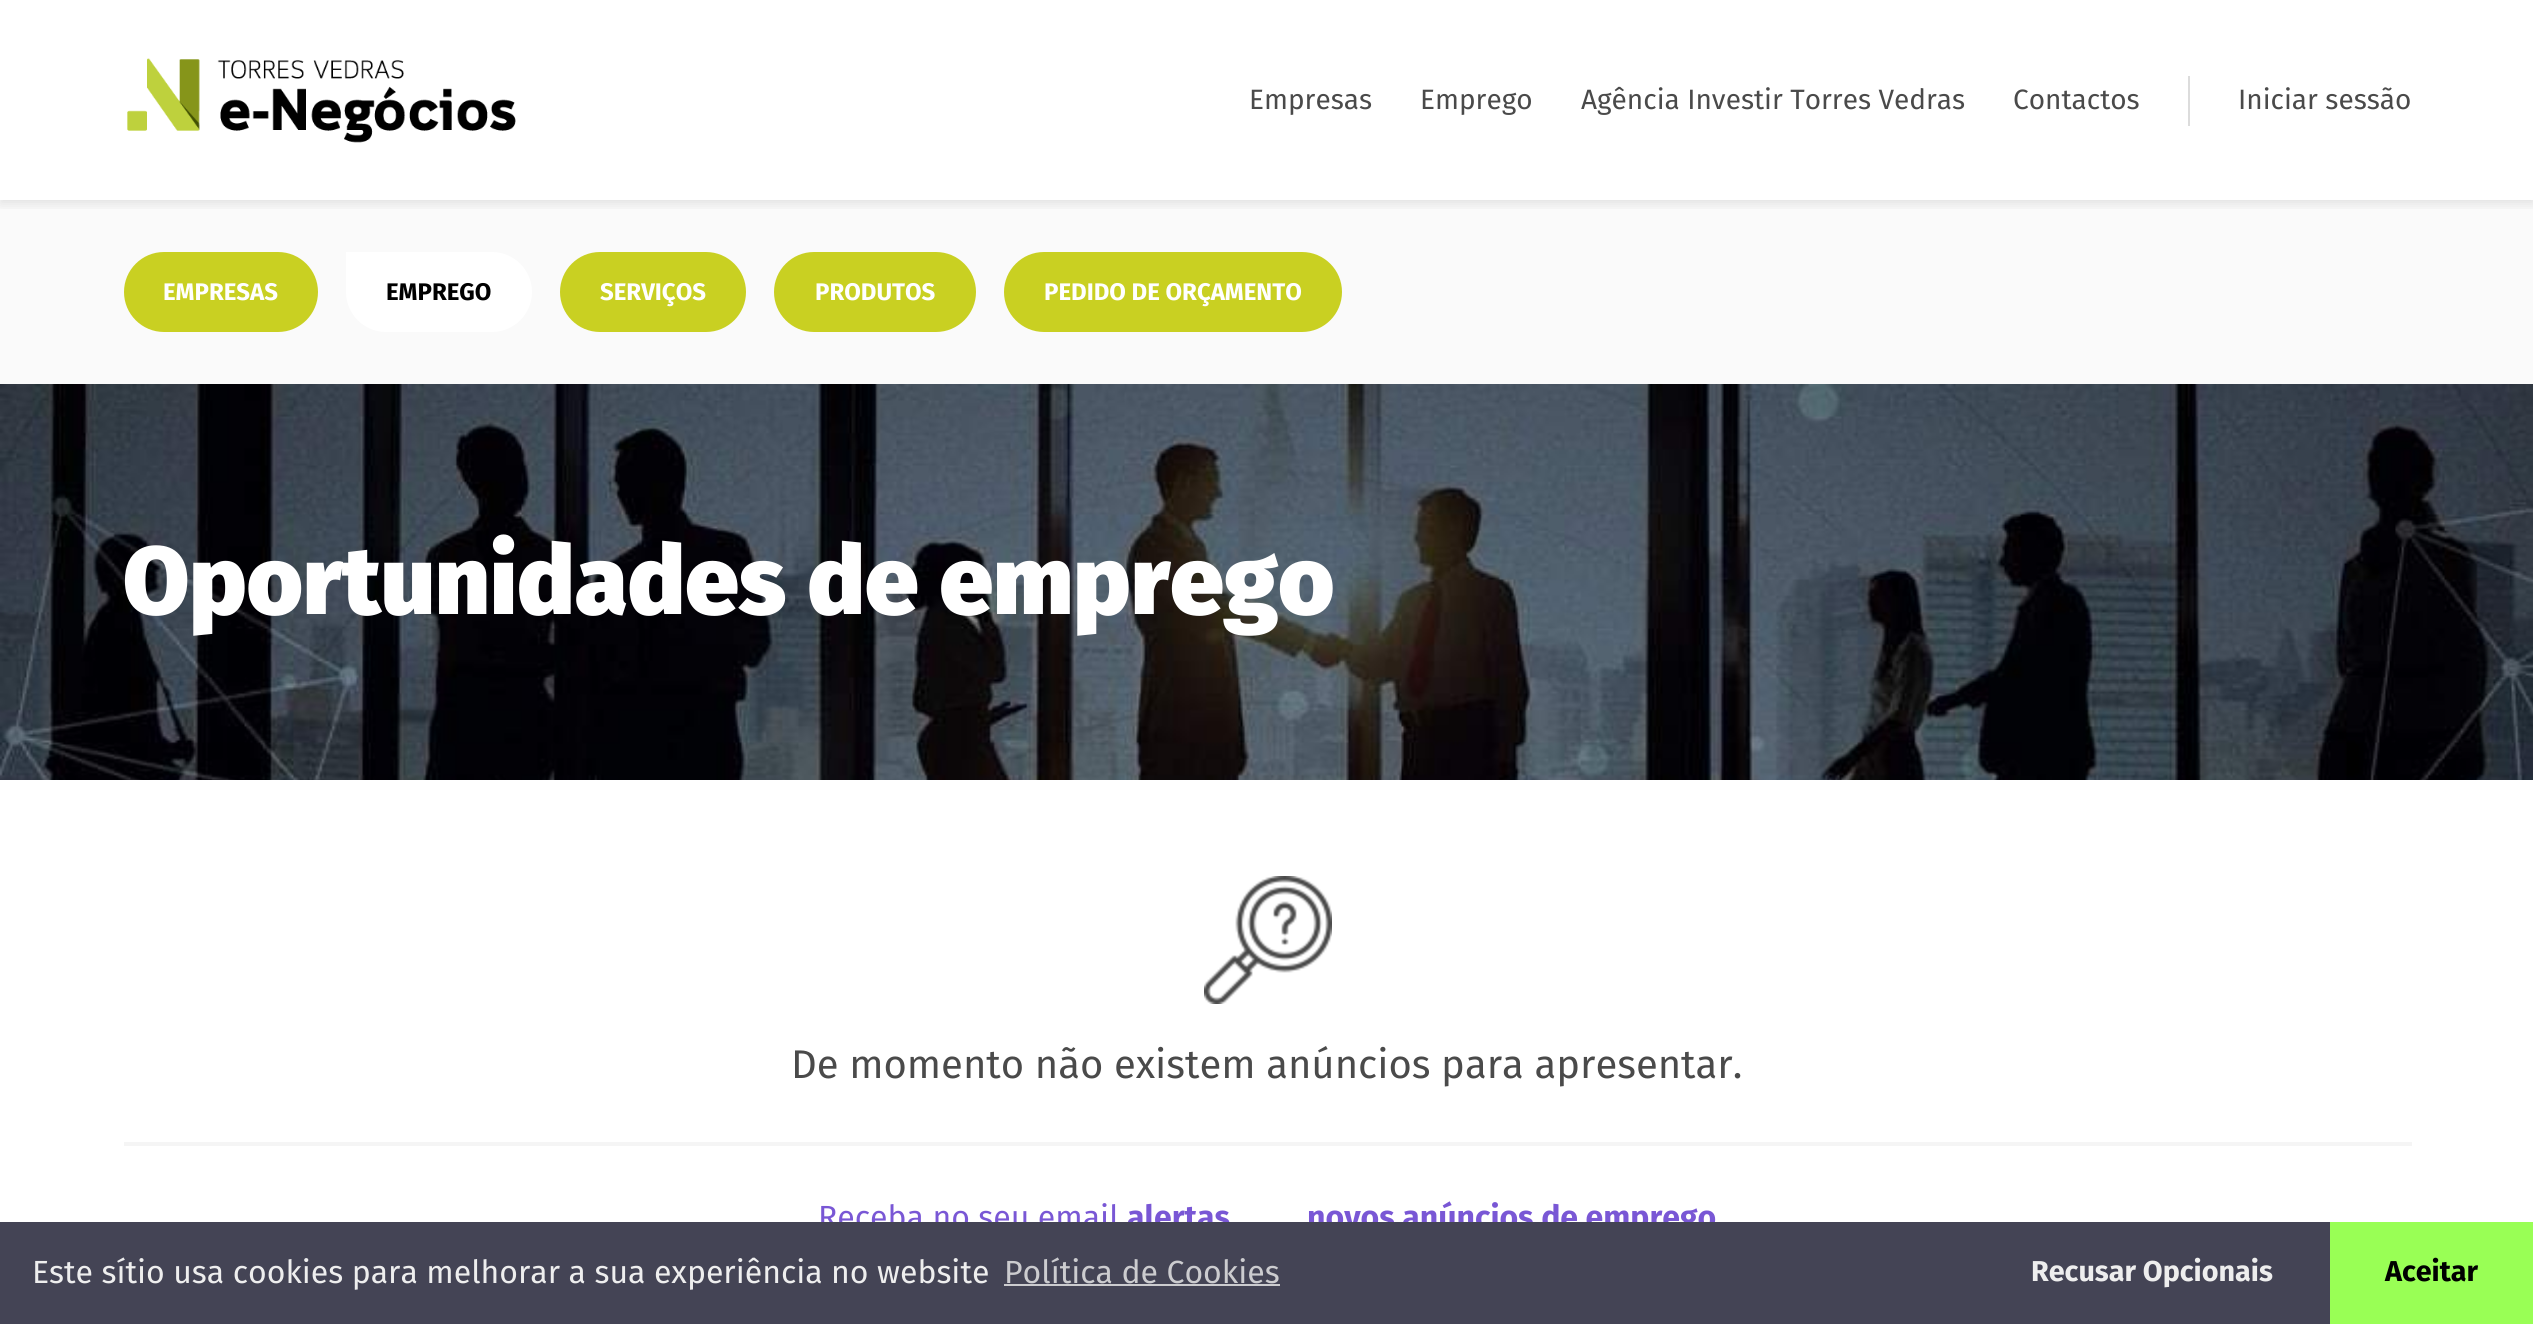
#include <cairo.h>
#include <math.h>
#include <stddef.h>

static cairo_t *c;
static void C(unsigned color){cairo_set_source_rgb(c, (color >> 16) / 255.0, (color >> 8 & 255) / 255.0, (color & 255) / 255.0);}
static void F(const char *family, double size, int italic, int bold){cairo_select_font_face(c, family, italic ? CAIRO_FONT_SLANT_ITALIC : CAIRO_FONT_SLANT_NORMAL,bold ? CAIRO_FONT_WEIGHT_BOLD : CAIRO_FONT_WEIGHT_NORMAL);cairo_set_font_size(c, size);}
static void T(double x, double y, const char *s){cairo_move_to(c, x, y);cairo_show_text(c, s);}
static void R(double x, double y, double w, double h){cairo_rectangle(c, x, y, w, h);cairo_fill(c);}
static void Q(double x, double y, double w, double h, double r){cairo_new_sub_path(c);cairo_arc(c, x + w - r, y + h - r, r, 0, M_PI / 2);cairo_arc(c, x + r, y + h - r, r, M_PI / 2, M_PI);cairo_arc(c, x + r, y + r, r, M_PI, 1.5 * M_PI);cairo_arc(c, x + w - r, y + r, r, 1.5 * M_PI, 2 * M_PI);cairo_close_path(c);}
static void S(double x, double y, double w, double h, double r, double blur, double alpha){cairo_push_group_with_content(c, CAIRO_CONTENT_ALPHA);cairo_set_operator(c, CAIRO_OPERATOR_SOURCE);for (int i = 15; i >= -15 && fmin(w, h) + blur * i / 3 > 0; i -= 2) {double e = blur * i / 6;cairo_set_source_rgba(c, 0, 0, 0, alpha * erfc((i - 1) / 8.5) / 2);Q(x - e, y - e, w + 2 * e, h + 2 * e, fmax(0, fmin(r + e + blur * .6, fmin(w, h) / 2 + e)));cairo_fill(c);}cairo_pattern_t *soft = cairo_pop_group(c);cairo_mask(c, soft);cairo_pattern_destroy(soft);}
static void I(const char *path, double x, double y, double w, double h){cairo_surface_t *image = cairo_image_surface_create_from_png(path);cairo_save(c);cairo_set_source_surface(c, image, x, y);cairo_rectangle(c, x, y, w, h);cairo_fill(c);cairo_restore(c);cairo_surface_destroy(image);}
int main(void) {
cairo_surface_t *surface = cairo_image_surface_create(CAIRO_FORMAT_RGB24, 2533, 1324);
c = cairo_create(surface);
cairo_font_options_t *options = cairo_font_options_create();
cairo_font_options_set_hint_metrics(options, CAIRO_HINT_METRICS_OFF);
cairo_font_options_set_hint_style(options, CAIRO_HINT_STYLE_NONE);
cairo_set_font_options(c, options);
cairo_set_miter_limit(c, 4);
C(0xffffff);
cairo_paint(c);
C(0xfafafa);
R(0,200,2533,184);
cairo_save(c);
cairo_rectangle(c,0,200,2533,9);
cairo_clip(c);
C(0x000000);
S(0,4,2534,200,0,6,.1);
cairo_restore(c);
I("1.png",127,58,389,85);
F("Fira Sans",28,0,0);
C(0x4a4a4a);
T(1249,109,"Empresas");
T(1420,109,"Emprego");
T(1581,109,"Agência Investir Torres Vedras");
T(2013,109,"Contactos");
C(0xdcdcdc);
R(2188,76,2,50);
C(0x4a4a4a);
T(2238,109,"Iniciar sessão");
C(0xc9d022);
Q(124,252,194,80,40);
cairo_fill(c);
F("Fira Sans",24,0,1);
C(0xffffff);
T(163,300,"EMPRESAS");
cairo_new_path(c);
cairo_move_to(c,346,252);
cairo_line_to(c,492,252);
cairo_curve_to(c,514,252,532,270,532,292);
cairo_curve_to(c,532,314,514,332,492,332);
cairo_line_to(c,386,332);
cairo_curve_to(c,364,332,346,314,346,292);
cairo_close_path(c);
cairo_fill(c);
C(0x000000);
T(386,300,"EMPREGO");
C(0xc9d022);
Q(560,252,186,80,40);
cairo_fill(c);
C(0xffffff);
T(600,300,"SERVIÇOS");
C(0xc9d022);
Q(774,252,202,80,40);
cairo_fill(c);
C(0xffffff);
T(815,300,"PRODUTOS");
C(0xc9d022);
Q(1004,252,338,80,40);
cairo_fill(c);
C(0xffffff);
T(1044,300,"PEDIDO DE ORÇAMENTO");
I("2.png",0,384,2533,396);
F("Fira Sans Black",96,0,0);
T(123,614,"Oportunidades de emprego");
I("3.png",1204,876,128,128);
F("Fira Sans",40,0,0);
C(0x4a4a4a);
T(791,1078,"De momento não existem anúncios para apresentar.");
C(0xf5f5f5);
R(124,1142,2288,4);
F("Fira Sans",32,0,0);
C(0x7957d5);
T(818,1228,"Receba no seu email");
F("Fira Sans",32,0,1);
T(1127,1228,"alertas");
T(1307,1228,"novos anúncios de emprego");
C(0x444455);
R(0,1222,2330,102);
F("Fira Sans",32,0,0);
C(0xeeeeee);
T(32,1283,"Este sítio usa cookies para melhorar a sua experiência no website");
C(0xcccccf);
T(1004,1283,"Política de Cookies");
R(1004,1284,276,2);
F("Fira Sans",28.75,0,1);
C(0xeeeeee);
T(2031,1281,"Recusar Opcionais");
C(0x99ff55);
R(2330,1222,203,102);
C(0x000000);
T(2385,1281,"Aceitar");
cairo_surface_write_to_png(surface, "o.png");
cairo_font_options_destroy(options);
cairo_destroy(c);
cairo_surface_destroy(surface);
return 0;
}
